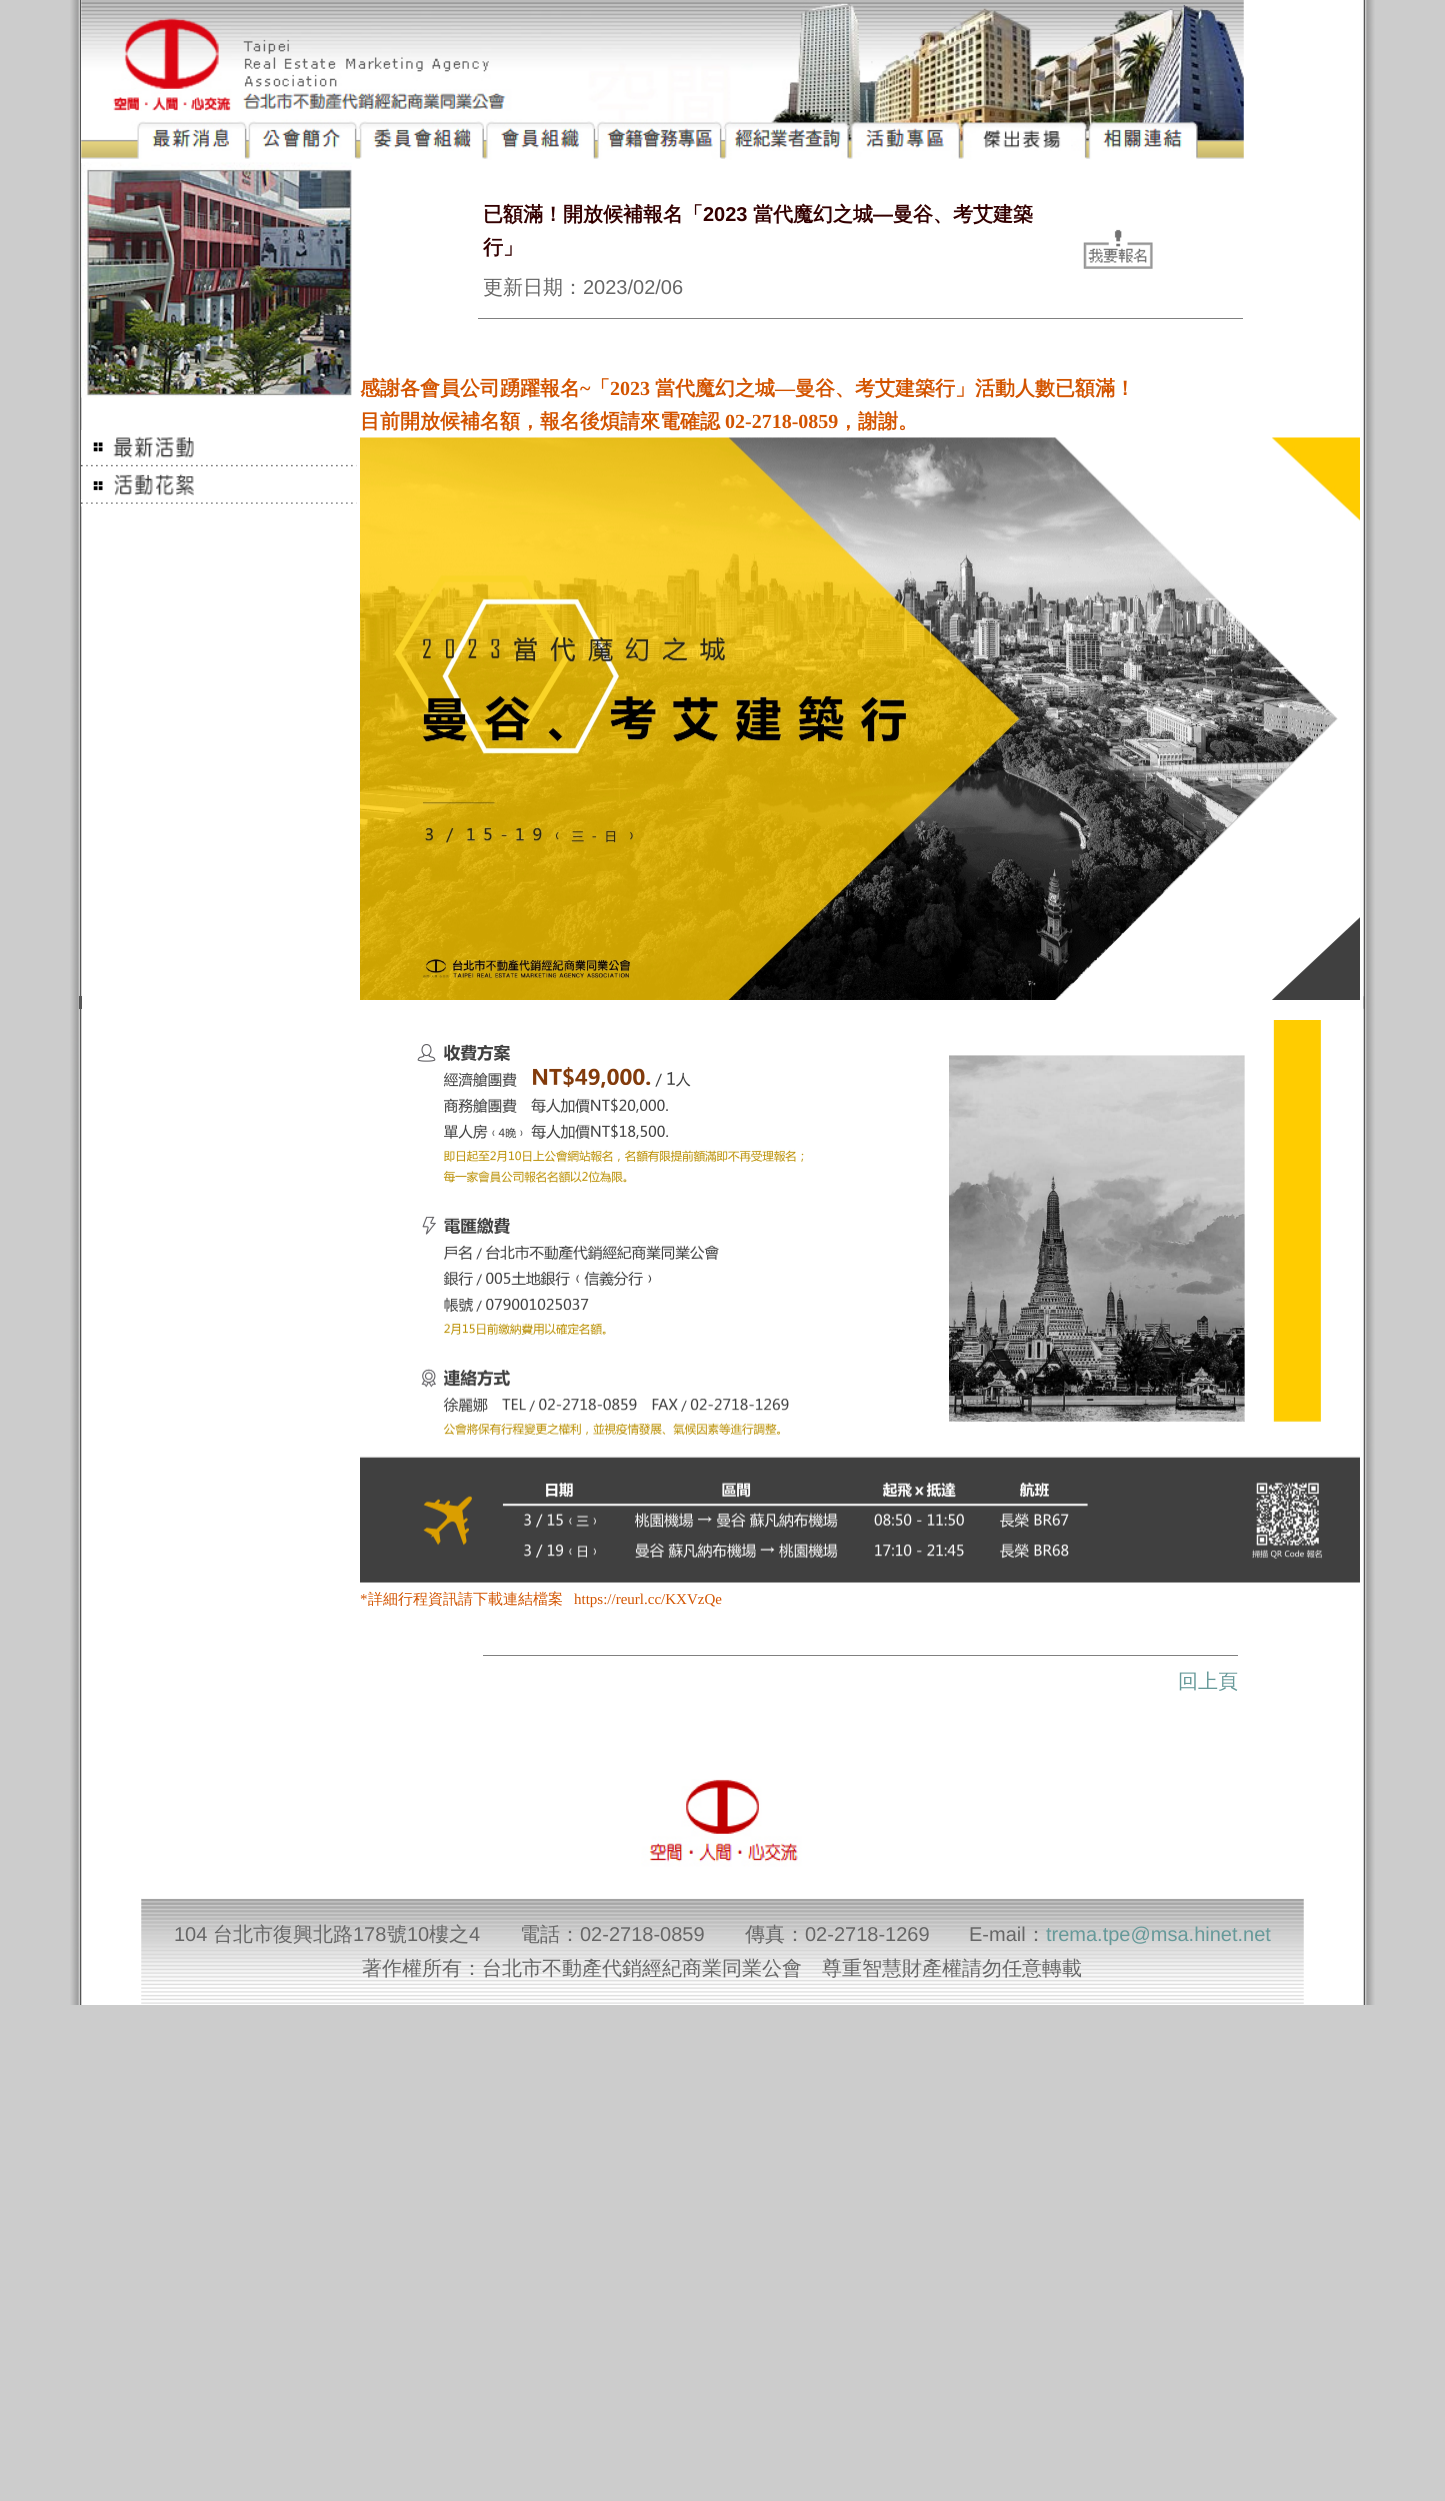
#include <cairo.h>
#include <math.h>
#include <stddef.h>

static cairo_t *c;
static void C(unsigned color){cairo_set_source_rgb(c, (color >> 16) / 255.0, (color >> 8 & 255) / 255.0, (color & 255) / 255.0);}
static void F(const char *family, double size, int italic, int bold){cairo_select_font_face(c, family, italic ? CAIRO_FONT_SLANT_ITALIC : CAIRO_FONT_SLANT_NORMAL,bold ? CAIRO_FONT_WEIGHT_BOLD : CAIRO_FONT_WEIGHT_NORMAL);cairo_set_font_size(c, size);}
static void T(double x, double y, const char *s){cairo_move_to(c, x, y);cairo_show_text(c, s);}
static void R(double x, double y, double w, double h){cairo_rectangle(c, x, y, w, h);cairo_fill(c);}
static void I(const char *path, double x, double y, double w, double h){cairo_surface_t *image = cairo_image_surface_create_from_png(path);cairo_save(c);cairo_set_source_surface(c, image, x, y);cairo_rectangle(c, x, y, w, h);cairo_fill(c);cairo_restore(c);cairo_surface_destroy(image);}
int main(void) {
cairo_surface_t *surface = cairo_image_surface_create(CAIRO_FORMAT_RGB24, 1445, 2501);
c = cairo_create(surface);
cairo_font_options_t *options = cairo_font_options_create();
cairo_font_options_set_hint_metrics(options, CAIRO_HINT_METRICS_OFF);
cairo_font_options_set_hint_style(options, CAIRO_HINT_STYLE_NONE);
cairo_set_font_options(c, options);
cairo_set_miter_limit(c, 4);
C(0xcccccc);
cairo_paint(c);
C(0xffffff);
R(81,163,1283,1842);
I("1.png",69,0,13,2005);
C(0x575757);
R(79,996,3,13);
C(0xffffff);
R(81,0,1283,163);
I("2.png",81,0,1163,160);
I("3.png",81,162,271,236);
I("4.png",81,430,113,31);
I("5.png",81,461,276,8);
I("6.png",81,461,6,8);
I("8.png",81,498,276,9);
I("7.png",81,469,113,30);
I("9.png",81,499,6,8);
F("WenQuanYi Zen Hei",20,0,1);
C(0x330000);
T(483,221,"已額滿！開放候補報名「");
F("Liberation Sans",20,0,1);
T(703,221,"2023");
F("WenQuanYi Zen Hei",20,0,1);
T(753,221,"當代魔幻之城");
F("Liberation Sans",20,0,1);
T(873,221,"—");
F("WenQuanYi Zen Hei",20,0,1);
T(893,221,"曼谷、考艾建築");
T(483,254,"行」");
I("10.png",1083,229,70,40);
F("WenQuanYi Zen Hei Medium",20,0,0);
C(0x666666);
T(483,294,"更新日期：");
F("Liberation Sans",20,0,0);
T(583,294,"2023/02/06");
C(0x808080);
R(478,318,765,1);
F("WenQuanYi Zen Hei",20,0,1);
C(0xd35400);
T(360,395,"感謝各會員公司踴躍報名");
F("Liberation Serif",20,0,1);
T(580,395,"~");
F("WenQuanYi Zen Hei",20,0,1);
T(590,395,"「");
F("Liberation Serif",20,0,1);
T(610,395,"2023");
F("WenQuanYi Zen Hei",20,0,1);
T(655,395,"當代魔幻之城");
F("Liberation Serif",20,0,1);
T(775,395,"—");
F("WenQuanYi Zen Hei",20,0,1);
T(795,395,"曼谷、考艾建築行」活動人數已額滿！");
T(360,428,"目前開放候補名額，報名後煩請來電確認");
F("Liberation Serif",20,0,1);
T(725,428,"02-2718-0859");
F("WenQuanYi Zen Hei",20,0,1);
T(838,428,"，謝謝。");
I("11.png",360,437,1000,563);
I("12.png",360,1020,1000,563);
F("Liberation Serif",15,0,0);
T(360,1604,"*");
F("WenQuanYi Zen Hei Medium",15,0,0);
T(368,1604,"詳細行程資訊請下載連結檔案");
F("Liberation Serif",15,0,0);
T(574,1604,"https://reurl.cc/KXVzQe");
C(0x808080);
R(483,1655,755,1);
F("WenQuanYi Zen Hei Medium",20,0,0);
C(0x669999);
T(1178,1688,"回上頁");
I("14.png",141,1898,1163,106);
I("13.png",141,1779,1163,120);
F("Liberation Sans",20,0,0);
C(0x666666);
T(174,1941,"104");
F("WenQuanYi Zen Hei Medium",20,0,0);
T(213,1941,"台北市復興北路");
F("Liberation Sans",20,0,0);
T(353,1941,"178");
F("WenQuanYi Zen Hei Medium",20,0,0);
T(387,1941,"號");
F("Liberation Sans",20,0,0);
T(407,1941,"10");
F("WenQuanYi Zen Hei Medium",20,0,0);
T(429,1941,"樓之");
F("Liberation Sans",20,0,0);
T(469,1941,"4");
F("WenQuanYi Zen Hei Medium",20,0,0);
T(520,1941,"電話：");
F("Liberation Sans",20,0,0);
T(580,1941,"02-2718-0859");
F("WenQuanYi Zen Hei Medium",20,0,0);
T(745,1941,"傳真：");
F("Liberation Sans",20,0,0);
T(805,1941,"02-2718-1269");
T(969,1941,"E-mail");
F("WenQuanYi Zen Hei Medium",20,0,0);
T(1026,1941,"：");
F("Liberation Sans",20,0,0);
C(0x669999);
T(1046,1941,"trema.tpe@msa.hinet.net");
F("WenQuanYi Zen Hei Medium",20,0,0);
C(0x666666);
T(362,1975,"著作權所有：台北市不動產代銷經紀商業同業公會　尊重智慧財產權請勿任意轉載");
I("15.png",1363,0,13,2005);
I("16.png",1363,996,2,13);
cairo_surface_write_to_png(surface, "o.png");
cairo_font_options_destroy(options);
cairo_destroy(c);
cairo_surface_destroy(surface);
return 0;
}
